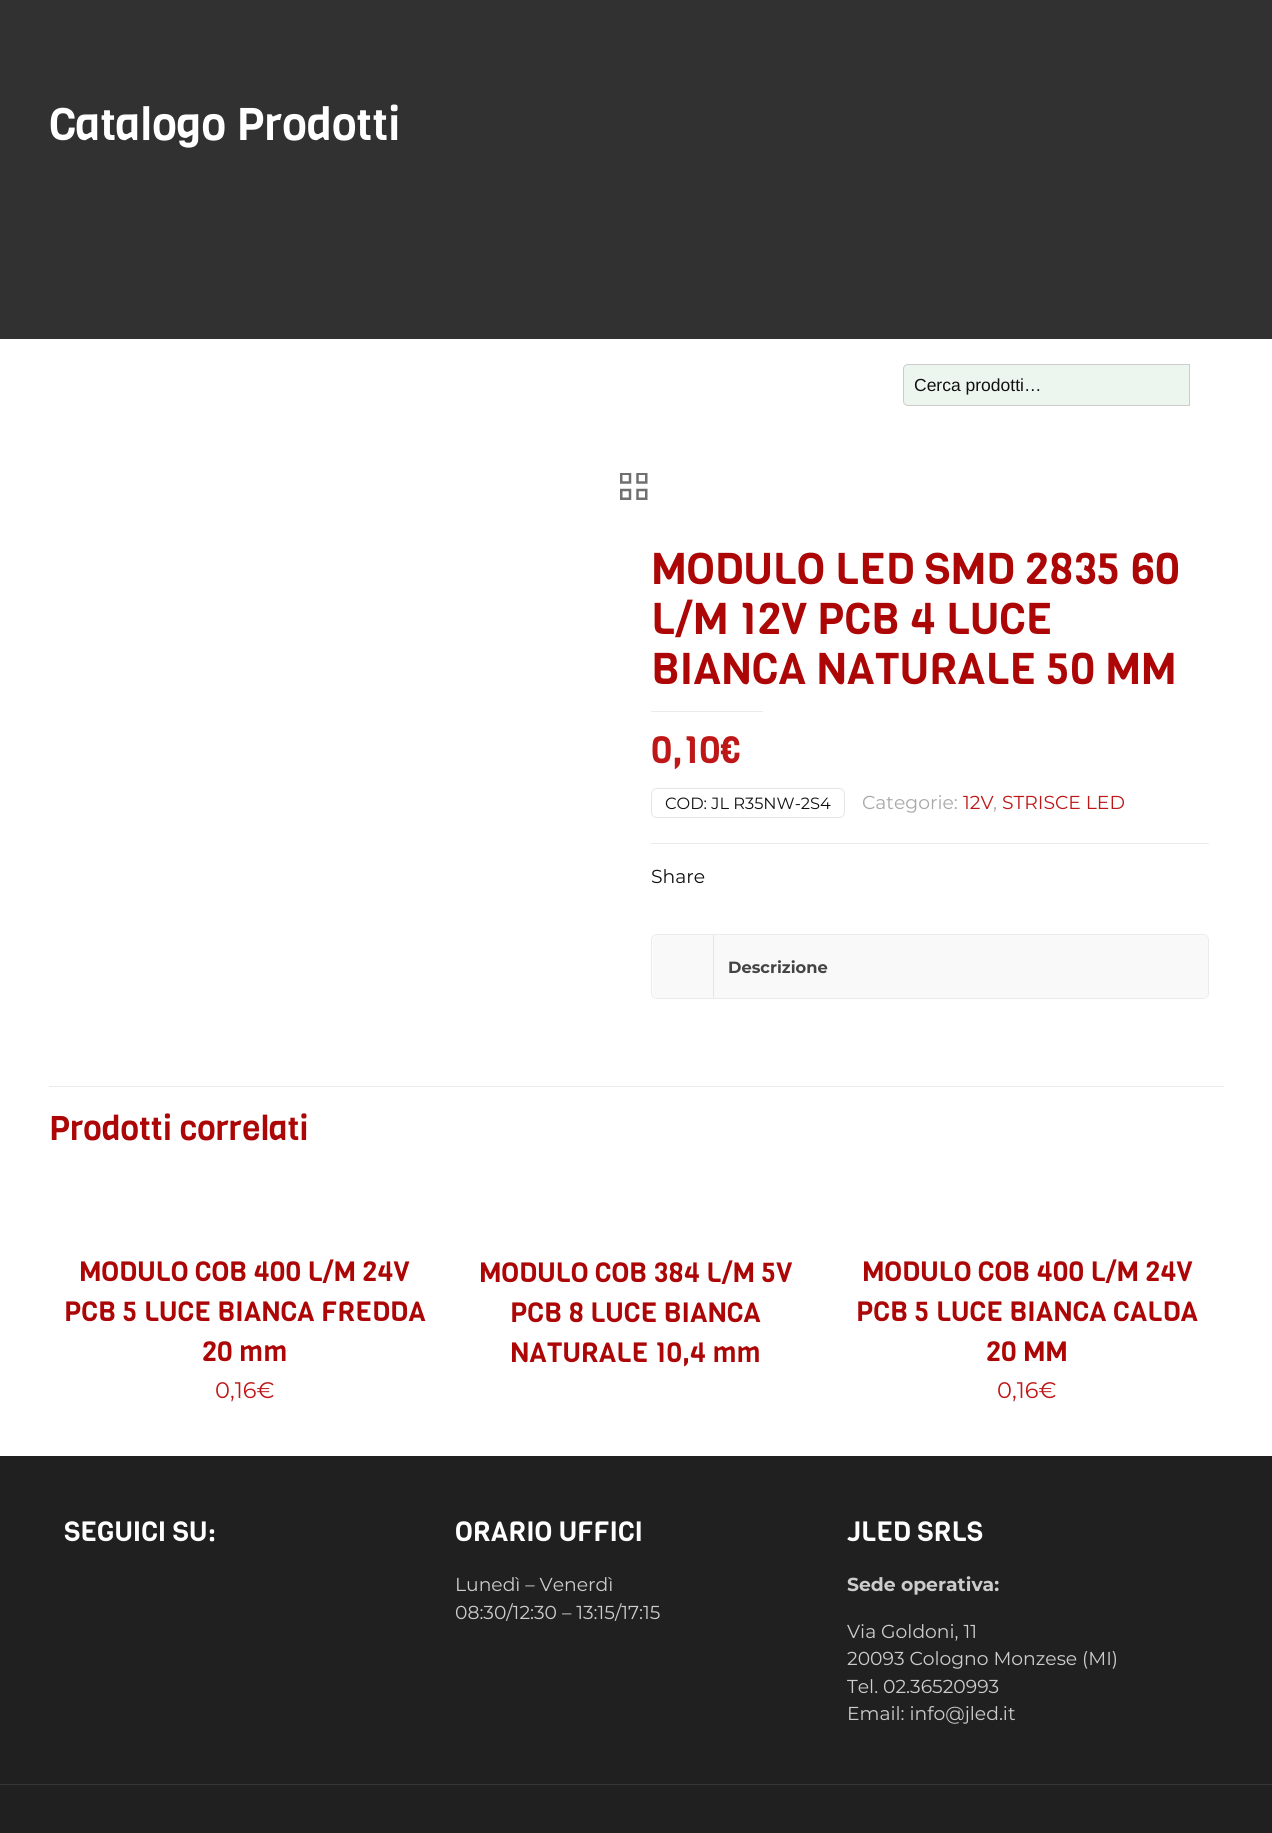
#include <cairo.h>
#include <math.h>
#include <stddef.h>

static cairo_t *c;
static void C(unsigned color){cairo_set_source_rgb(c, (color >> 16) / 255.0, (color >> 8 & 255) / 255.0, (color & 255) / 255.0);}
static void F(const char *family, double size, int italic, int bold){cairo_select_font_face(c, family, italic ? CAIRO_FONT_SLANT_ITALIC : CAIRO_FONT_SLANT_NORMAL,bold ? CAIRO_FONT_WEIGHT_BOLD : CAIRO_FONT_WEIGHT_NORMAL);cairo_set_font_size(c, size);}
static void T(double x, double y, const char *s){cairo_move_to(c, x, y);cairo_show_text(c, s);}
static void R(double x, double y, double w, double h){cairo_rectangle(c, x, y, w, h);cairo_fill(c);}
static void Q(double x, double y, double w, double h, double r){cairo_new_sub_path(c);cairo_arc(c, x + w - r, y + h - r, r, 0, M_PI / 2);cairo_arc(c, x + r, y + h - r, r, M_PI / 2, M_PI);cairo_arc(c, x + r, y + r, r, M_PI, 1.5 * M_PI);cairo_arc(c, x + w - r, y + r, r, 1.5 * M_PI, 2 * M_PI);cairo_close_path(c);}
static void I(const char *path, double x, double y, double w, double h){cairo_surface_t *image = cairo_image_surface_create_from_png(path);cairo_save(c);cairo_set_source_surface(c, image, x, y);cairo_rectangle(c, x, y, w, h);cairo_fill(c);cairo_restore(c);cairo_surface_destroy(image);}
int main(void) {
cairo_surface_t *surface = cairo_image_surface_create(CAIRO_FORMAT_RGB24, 1272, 1833);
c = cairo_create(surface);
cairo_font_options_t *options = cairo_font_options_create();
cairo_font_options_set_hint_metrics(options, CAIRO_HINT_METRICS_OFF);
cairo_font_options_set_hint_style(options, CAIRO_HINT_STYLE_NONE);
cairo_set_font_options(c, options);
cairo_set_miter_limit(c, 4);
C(0xffffff);
cairo_paint(c);
C(0x313131);
R(0,0,1272,339);
F("Viga",45,0,0);
C(0xffffff);
T(49,140,"Catalogo Prodotti");
C(0xedf6ee);
cairo_new_path(c);
cairo_move_to(c,908,364.5);
cairo_line_to(c,1189.5,364.5);
cairo_line_to(c,1189.5,405.5);
cairo_line_to(c,908,405.5);
cairo_curve_to(c,905.5,405.5,903.5,403.5,903.5,401);
cairo_line_to(c,903.5,369);
cairo_curve_to(c,903.5,366.5,905.5,364.5,908,364.5);
cairo_close_path(c);
cairo_fill_preserve(c);
C(0xcccccc);
cairo_set_line_width(c,1);
cairo_stroke(c);
F("Liberation Sans",17.5,0,0);
C(0x111111);
T(914,391,"Cerca prodotti…");
I("1.png",620,473,28,27);
F("Viga",43.75,0,0);
C(0xac0606);
T(651,584,"MODULO LED SMD 2835 60");
T(651,634,"L/M 12V PCB 4 LUCE");
T(651,684,"BIANCA NATURALE 50 MM");
C(0xebebeb);
R(651,711,112,1);
F("Viga",37.5,0,0);
C(0xbe1717);
T(651,763,"0,10€");
Q(651.5,788.5,193,29,5.5);
C(0xe6e6e6);
cairo_stroke(c);
F("Montserrat",16.25,0,0);
C(0x111111);
T(665,809,"COD: JL R35NW-2S4");
F("Montserrat",18.75,0,0);
C(0xa8a8a8);
T(862,809,"Categorie:");
C(0xbe1717);
T(963,809,"12V");
C(0xa8a8a8);
T(993,809,",");
C(0xbe1717);
T(1002,809,"STRISCE LED");
C(0xebebeb);
R(651,843,558,1);
C(0x111111);
T(651,883,"Share");
Q(651.5,934.5,557,64,5.5);
C(0xebebeb);
cairo_stroke(c);
C(0xf9f9f9);
Q(653,935,555,63,5);
cairo_fill(c);
C(0xe5e5e5);
R(713,935,1,63);
F("Montserrat",16.25,0,1);
C(0x444444);
T(728,973,"Descrizione");
C(0xebebeb);
R(49,1086,1175,1);
F("Viga",33.75,0,0);
C(0xac0606);
T(49,1140,"Prodotti correlati");
F("Viga",27.5,0,0);
T(79,1281,"MODULO COB 400 L/M 24V");
T(64,1321,"PCB 5 LUCE BIANCA FREDDA");
T(202,1361,"20 mm");
F("Montserrat",22.5,0,0);
C(0xbe1717);
T(215,1398,"0,16€");
F("Viga",27.5,0,0);
C(0xac0606);
T(479,1282,"MODULO COB 384 L/M 5V");
T(510,1322,"PCB 8 LUCE BIANCA");
T(510,1362,"NATURALE 10,4 mm");
T(862,1281,"MODULO COB 400 L/M 24V");
T(856,1321,"PCB 5 LUCE BIANCA CALDA");
T(986,1361,"20 MM");
F("Montserrat",22.5,0,0);
C(0xbe1717);
T(997,1398,"0,16€");
C(0x212020);
R(0,1456,1272,377);
F("Viga",27.5,0,0);
C(0xffffff);
T(64,1541,"SEGUICI SU:");
T(455,1541,"ORARIO UFFICI");
F("Montserrat",18.75,0,0);
C(0xcccccc);
T(455,1591,"Lunedì – Venerdì");
T(455,1619,"08:30/12:30 – 13:15/17:15");
F("Viga",27.5,0,0);
C(0xffffff);
T(847,1541,"JLED SRLS");
F("Montserrat",18.75,0,1);
C(0xcccccc);
T(847,1591,"Sede operativa:");
F("Montserrat",18.75,0,0);
T(847,1638,"Via Goldoni, 11");
T(847,1665,"20093 Cologno Monzese (MI)");
T(847,1693,"Tel. 02.36520993");
T(847,1720,"Email: info@jled.it");
C(0x373636);
R(0,1784,1272,1);
cairo_surface_write_to_png(surface, "o.png");
cairo_font_options_destroy(options);
cairo_destroy(c);
cairo_surface_destroy(surface);
return 0;
}
